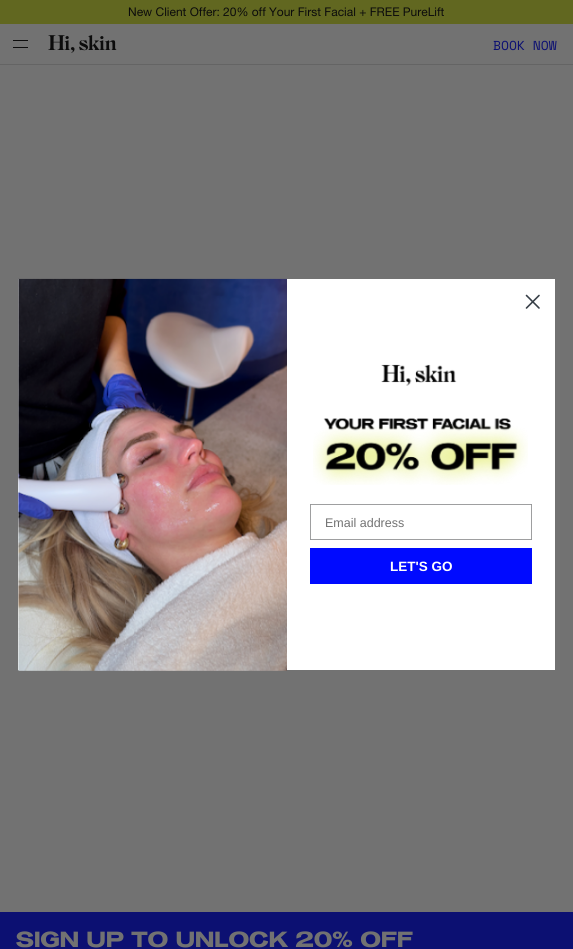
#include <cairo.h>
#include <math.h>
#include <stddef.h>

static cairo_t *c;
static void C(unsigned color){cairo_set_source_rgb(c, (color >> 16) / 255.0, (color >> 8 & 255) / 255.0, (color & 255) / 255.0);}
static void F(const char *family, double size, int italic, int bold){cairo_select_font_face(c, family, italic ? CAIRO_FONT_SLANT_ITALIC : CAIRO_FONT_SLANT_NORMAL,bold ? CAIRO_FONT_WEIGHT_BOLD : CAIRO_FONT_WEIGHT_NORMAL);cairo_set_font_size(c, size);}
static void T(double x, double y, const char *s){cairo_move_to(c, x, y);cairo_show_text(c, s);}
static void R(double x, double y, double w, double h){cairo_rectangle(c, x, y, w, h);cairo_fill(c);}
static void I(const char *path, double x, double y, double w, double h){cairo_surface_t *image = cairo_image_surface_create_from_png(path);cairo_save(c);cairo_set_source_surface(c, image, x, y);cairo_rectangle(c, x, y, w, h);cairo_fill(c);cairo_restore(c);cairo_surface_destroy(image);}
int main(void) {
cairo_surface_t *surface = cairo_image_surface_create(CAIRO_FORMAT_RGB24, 573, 949);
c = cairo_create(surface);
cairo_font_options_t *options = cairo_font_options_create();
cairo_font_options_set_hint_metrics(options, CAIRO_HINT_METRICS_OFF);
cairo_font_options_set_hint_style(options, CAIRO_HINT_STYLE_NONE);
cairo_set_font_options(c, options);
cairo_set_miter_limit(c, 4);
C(0x727272);
cairo_paint(c);
C(0x616720);
R(0,0,573,24);
F("Helvetica Neue",12,0,0);
C(0x0c0c0c);
T(128,16,"New Client Offer: 20% off Your First Facial + FREE PureLift");
C(0x646464);
R(0,64,573,1);
C(0x0c0c0c);
R(13,40,15,1);
R(13,47,15,1);
I("1.png",48,35,69,18);
F("Space Mono",13,0,0);
C(0x0c1072);
T(493,50,"BOOK NOW");
R(0,912,573,37);
F("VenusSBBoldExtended",23,0,1);
C(0x727272);
T(16,947,"SIGN UP TO UNLOCK 20% OFF");
C(0xffffff);
R(18,279,537,391);
cairo_new_path(c);
cairo_move_to(c,526.5,295.5);
cairo_line_to(c,539,308);
cairo_move_to(c,526.5,308);
cairo_line_to(c,539,295.5);
cairo_close_path(c);
C(0x373f47);
cairo_set_line_width(c,1.6);
cairo_set_line_cap(c,CAIRO_LINE_CAP_ROUND);
cairo_set_line_join(c,CAIRO_LINE_JOIN_ROUND);
cairo_stroke(c);
I("2.png",18,278,269,393);
I("3.png",313,364,215,121);
cairo_rectangle(c,310.45,504.45,221.1,35.1);
C(0x949596);
cairo_set_line_width(c,.9);
cairo_set_line_cap(c,CAIRO_LINE_CAP_BUTT);
cairo_set_line_join(c,CAIRO_LINE_JOIN_MITER);
cairo_stroke(c);
F("Liberation Sans",12.5,0,0);
C(0x727272);
T(325,527,"Email address");
C(0x000aff);
R(310,548,222,36);
F("Liberation Sans",13.5,0,1);
C(0xffffff);
T(390,571,"LET'S GO");
cairo_surface_write_to_png(surface, "o.png");
cairo_font_options_destroy(options);
cairo_destroy(c);
cairo_surface_destroy(surface);
return 0;
}
